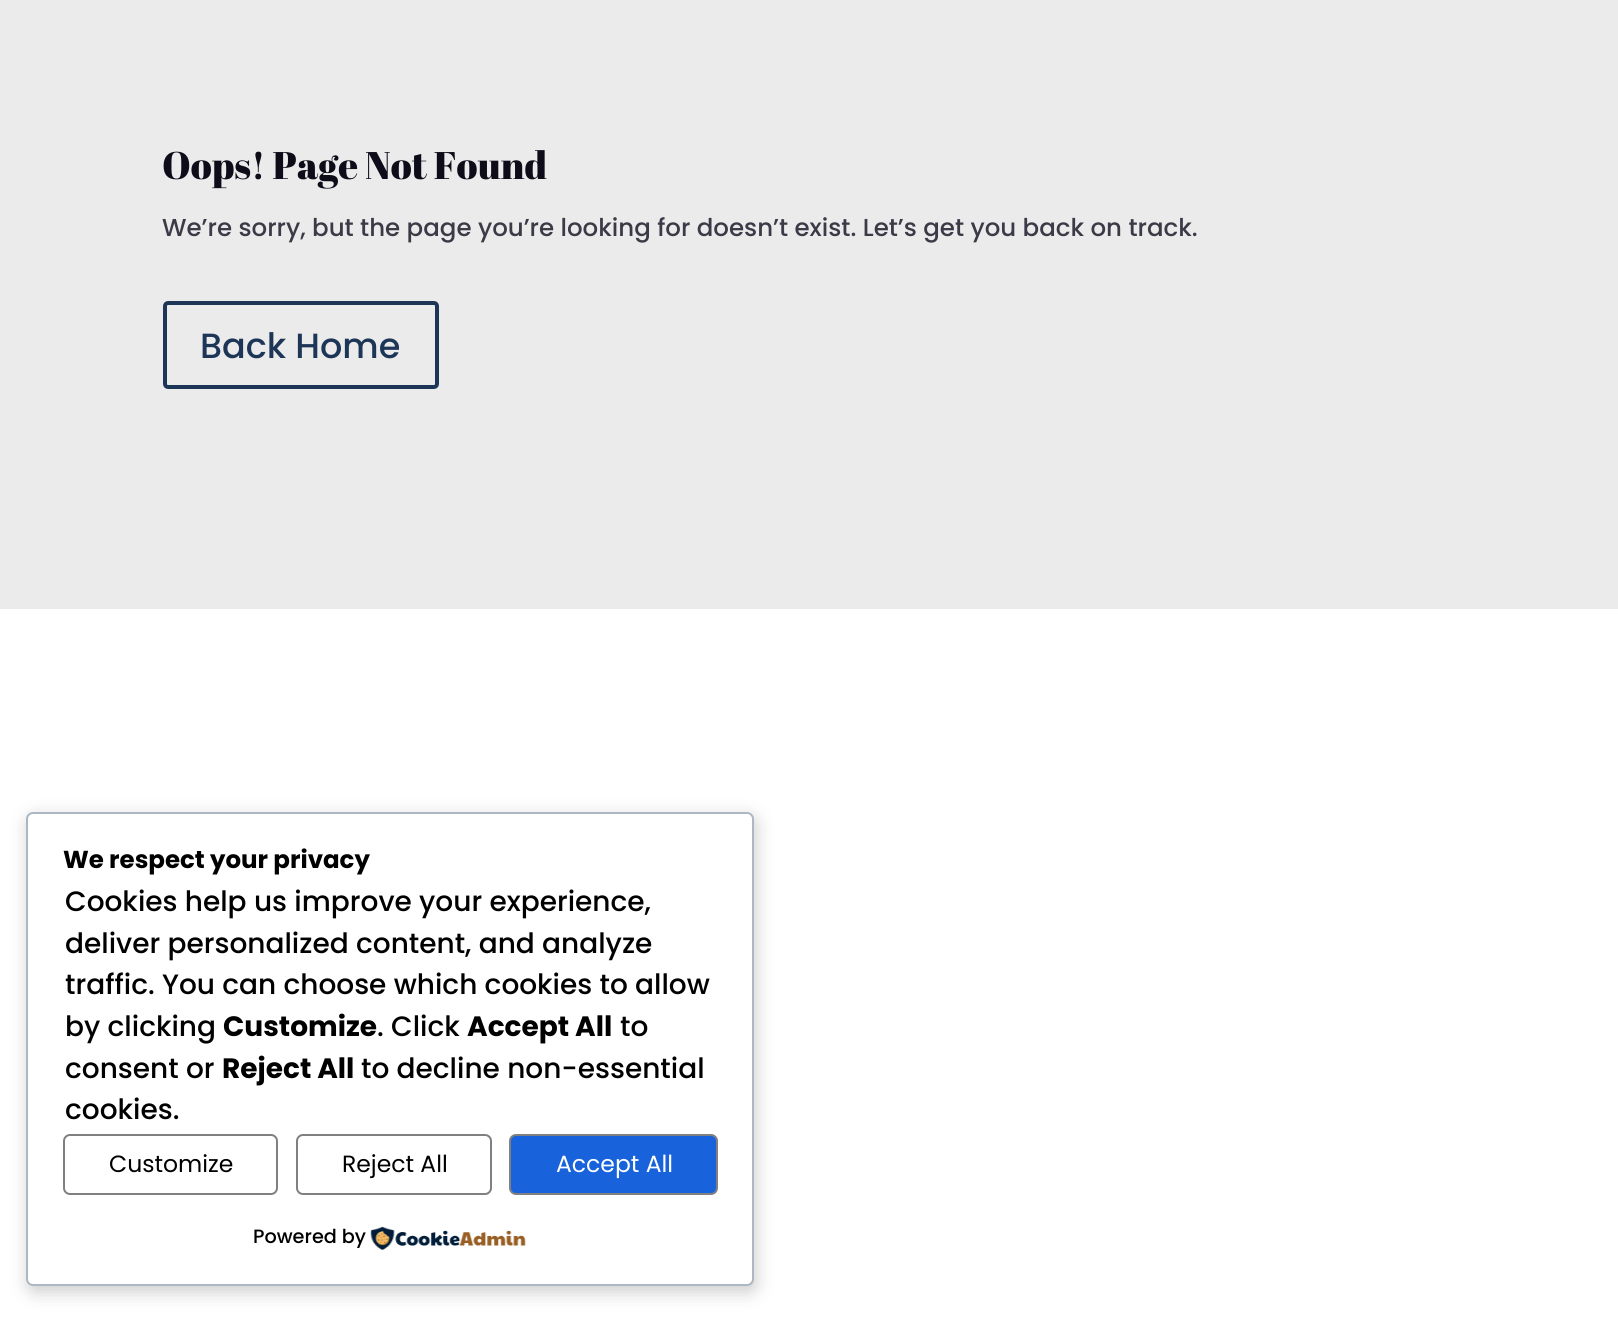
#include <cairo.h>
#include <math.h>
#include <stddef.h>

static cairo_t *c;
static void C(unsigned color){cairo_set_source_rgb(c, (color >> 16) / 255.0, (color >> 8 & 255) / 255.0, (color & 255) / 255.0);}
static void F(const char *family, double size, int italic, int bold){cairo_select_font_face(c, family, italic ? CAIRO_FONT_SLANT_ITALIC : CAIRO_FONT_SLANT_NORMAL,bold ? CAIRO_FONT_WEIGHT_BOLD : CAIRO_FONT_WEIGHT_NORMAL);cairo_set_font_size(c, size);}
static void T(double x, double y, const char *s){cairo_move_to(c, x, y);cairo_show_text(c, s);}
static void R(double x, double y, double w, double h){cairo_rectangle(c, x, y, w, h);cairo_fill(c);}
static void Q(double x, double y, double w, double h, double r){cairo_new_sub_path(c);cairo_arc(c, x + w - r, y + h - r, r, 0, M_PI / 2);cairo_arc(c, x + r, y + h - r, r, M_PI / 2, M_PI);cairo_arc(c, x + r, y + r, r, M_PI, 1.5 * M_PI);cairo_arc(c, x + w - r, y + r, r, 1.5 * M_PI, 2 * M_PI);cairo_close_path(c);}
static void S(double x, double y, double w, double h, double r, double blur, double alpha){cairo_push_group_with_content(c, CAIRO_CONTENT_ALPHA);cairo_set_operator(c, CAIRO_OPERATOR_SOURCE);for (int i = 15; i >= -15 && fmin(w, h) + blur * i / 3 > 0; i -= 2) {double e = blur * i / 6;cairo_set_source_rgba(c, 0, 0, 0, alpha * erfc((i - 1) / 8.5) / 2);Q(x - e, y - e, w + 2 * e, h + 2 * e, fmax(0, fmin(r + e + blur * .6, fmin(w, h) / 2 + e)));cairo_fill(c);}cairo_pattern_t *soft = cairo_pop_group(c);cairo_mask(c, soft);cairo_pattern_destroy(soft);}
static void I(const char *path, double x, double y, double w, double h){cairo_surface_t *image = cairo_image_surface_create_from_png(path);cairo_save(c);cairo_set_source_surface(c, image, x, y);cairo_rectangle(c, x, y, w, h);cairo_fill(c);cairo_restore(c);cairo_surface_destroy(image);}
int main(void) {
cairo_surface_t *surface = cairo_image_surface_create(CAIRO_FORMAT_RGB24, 1618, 1320);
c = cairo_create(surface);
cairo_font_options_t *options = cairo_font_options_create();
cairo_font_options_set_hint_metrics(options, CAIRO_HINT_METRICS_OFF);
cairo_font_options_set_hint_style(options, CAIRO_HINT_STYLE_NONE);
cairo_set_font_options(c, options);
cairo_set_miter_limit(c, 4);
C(0xffffff);
cairo_paint(c);
C(0xebebeb);
R(0,0,1618,609);
F("Abril Fatface",38.5,0,0);
C(0x0e0c19);
T(162,179,"Oops! Page Not Found");
F("Poppins Medium",24.5,0,0);
C(0x3c3a47);
T(162,236,"We’re sorry, but the page you’re looking for doesn’t exist. Let’s get you back on track.");
Q(165,303,272,84,3);
C(0x1d3557);
cairo_set_line_width(c,4);
cairo_stroke(c);
F("Poppins Medium",35,0,0);
T(200,358,"Back Home");
C(0x000000);
S(28,817,728,475,7,9,.2);
C(0xffffff);
Q(27,813,726,472,6);
cairo_fill_preserve(c);
C(0xabb8c3);
cairo_set_line_width(c,2);
cairo_stroke(c);
F("Poppins",24.5,0,1);
C(0x000000);
T(63,868,"We respect your privacy");
F("Poppins Medium",28,0,0);
T(65,911,"Cookies help us improve your experience,");
T(65,953,"deliver personalized content, and analyze");
T(65,994,"traffic. You can choose which cookies to allow");
T(65,1036,"by clicking");
F("Poppins",28,0,1);
T(223,1036,"Customize");
F("Poppins Medium",28,0,0);
T(377,1036,". Click");
F("Poppins",28,0,1);
T(467,1036,"Accept All");
F("Poppins Medium",28,0,0);
T(620,1036,"to");
T(65,1078,"consent or");
F("Poppins",28,0,1);
T(222,1078,"Reject All");
F("Poppins Medium",28,0,0);
T(361,1078,"to decline non-essential");
T(65,1119,"cookies.");
Q(64,1135,213,59,6);
C(0x808080);
cairo_stroke(c);
F("Poppins",23.5,0,0);
C(0x000000);
T(109,1172,"Customize");
Q(297,1135,194,59,6);
C(0x808080);
cairo_stroke(c);
C(0x000000);
T(342,1172,"Reject All");
C(0x1863dc);
Q(510,1135,207,59,6);
cairo_fill_preserve(c);
C(0x808080);
cairo_stroke(c);
C(0xffffff);
T(556,1172,"Accept All");
F("Poppins Medium",19.25,0,0);
C(0x000000);
T(253,1243,"Powered by");
I("1.png",370,1226,156,24);
cairo_surface_write_to_png(surface, "o.png");
cairo_font_options_destroy(options);
cairo_destroy(c);
cairo_surface_destroy(surface);
return 0;
}
